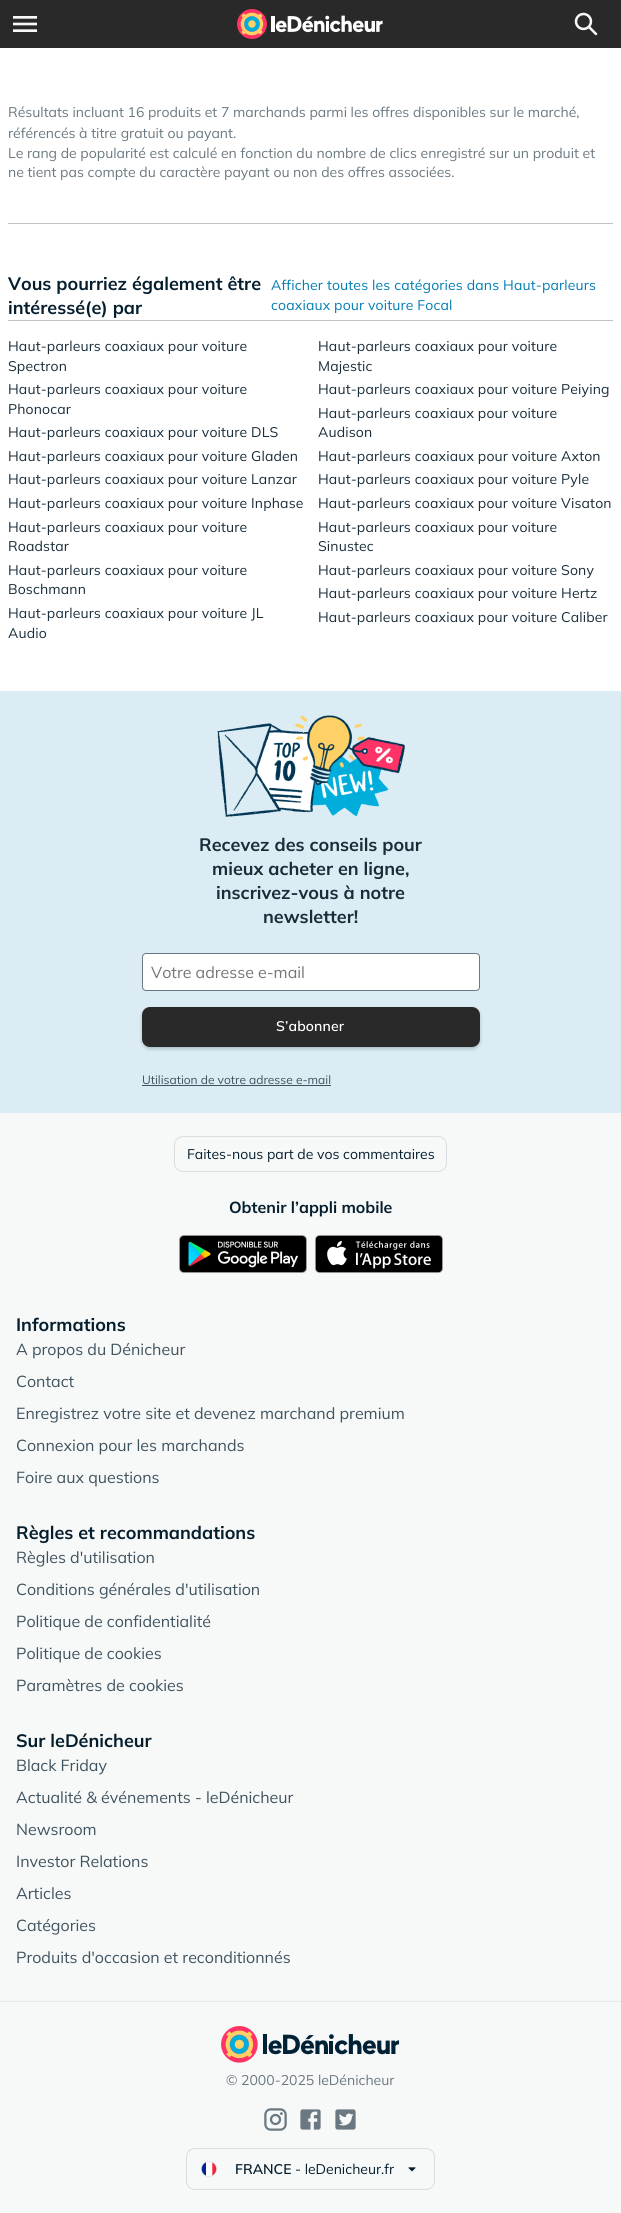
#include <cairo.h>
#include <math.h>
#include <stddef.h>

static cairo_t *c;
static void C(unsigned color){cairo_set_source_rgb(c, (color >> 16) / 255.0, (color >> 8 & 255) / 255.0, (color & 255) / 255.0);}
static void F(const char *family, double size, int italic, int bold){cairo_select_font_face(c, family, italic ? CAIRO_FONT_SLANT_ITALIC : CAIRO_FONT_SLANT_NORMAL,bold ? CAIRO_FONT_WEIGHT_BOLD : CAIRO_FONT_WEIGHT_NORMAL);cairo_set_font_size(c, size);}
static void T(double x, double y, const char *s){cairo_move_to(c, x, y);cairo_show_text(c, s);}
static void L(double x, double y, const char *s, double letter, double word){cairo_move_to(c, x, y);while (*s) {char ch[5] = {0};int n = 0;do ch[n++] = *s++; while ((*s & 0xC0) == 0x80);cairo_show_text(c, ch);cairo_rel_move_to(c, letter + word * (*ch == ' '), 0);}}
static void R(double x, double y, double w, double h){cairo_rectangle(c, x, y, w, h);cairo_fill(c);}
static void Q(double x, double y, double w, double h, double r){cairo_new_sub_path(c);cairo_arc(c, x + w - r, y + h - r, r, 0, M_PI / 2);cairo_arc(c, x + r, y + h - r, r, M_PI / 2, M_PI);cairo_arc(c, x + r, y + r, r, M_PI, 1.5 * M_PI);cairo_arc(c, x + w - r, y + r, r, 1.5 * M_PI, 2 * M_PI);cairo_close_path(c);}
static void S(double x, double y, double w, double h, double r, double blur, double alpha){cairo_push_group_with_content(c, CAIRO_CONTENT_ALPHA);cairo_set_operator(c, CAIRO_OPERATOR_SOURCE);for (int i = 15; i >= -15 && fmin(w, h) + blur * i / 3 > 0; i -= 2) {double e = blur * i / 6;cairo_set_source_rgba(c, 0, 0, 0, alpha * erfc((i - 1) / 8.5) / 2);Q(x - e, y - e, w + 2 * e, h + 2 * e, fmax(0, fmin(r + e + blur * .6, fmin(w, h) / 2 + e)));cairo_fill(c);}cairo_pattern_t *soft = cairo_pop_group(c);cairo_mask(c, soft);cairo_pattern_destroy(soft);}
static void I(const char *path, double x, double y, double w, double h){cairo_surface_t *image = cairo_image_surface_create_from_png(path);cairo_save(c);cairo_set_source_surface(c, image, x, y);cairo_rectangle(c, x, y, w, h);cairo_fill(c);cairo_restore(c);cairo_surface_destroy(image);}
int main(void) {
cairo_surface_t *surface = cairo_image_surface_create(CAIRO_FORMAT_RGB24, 621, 2213);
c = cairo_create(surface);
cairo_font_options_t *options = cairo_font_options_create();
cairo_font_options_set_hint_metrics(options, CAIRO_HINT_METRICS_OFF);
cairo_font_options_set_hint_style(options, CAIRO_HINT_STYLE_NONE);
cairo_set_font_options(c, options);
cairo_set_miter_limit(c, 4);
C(0xffffff);
cairo_paint(c);
C(0x292929);
R(0,0,621,48);
I("1.png",13,16,24,16);
I("2.png",237,9,146,30);
I("3.png",574,12,24,24);
F("Mulish",14,0,0);
C(0x6a7881);
T(8,117,"Résultats incluant 16 produits et 7 marchands parmi les offres disponibles sur le marché,");
T(8,138,"référencés à titre gratuit ou payant.");
T(8,158,"Le rang de popularité est calculé en fonction du nombre de clics enregistré sur un produit et");
T(8,177,"ne tient pas compte du caractère payant ou non des offres associées.");
C(0xbec3c6);
R(8,223,605,1);
R(8,320,605,1);
F("Mulish",18,0,1);
C(0x051e2e);
T(8,290,"Vous pourriez également être");
T(8,314,"intéressé(e) par");
F("Mulish",14,0,0);
C(0x007cb2);
L(271,290,"Afficher toutes les catégories dans Haut-parleurs",.15,0);
L(271,310,"coaxiaux pour voiture Focal",.15,0);
C(0x182c39);
L(8,351,"Haut-parleurs coaxiaux pour voiture",.15,0);
L(8,371,"Spectron",.15,0);
L(318,351,"Haut-parleurs coaxiaux pour voiture",.15,0);
L(318,371,"Majestic",.15,0);
L(8,394,"Haut-parleurs coaxiaux pour voiture",.15,0);
L(8,414,"Phonocar",.15,0);
L(318,394,"Haut-parleurs coaxiaux pour voiture Peiying",.15,0);
L(8,437,"Haut-parleurs coaxiaux pour voiture DLS",.15,0);
L(318,418,"Haut-parleurs coaxiaux pour voiture",.15,0);
L(318,437,"Audison",.15,0);
L(8,461,"Haut-parleurs coaxiaux pour voiture Gladen",.15,0);
L(318,461,"Haut-parleurs coaxiaux pour voiture Axton",.15,0);
L(8,484,"Haut-parleurs coaxiaux pour voiture Lanzar",.15,0);
L(318,484,"Haut-parleurs coaxiaux pour voiture Pyle",.15,0);
L(8,508,"Haut-parleurs coaxiaux pour voiture Inphase",.15,0);
L(318,508,"Haut-parleurs coaxiaux pour voiture Visaton",.15,0);
L(8,532,"Haut-parleurs coaxiaux pour voiture",.15,0);
L(8,551,"Roadstar",.15,0);
L(318,532,"Haut-parleurs coaxiaux pour voiture",.15,0);
L(318,551,"Sinustec",.15,0);
L(8,575,"Haut-parleurs coaxiaux pour voiture",.15,0);
L(8,594,"Boschmann",.15,0);
L(318,575,"Haut-parleurs coaxiaux pour voiture Sony",.15,0);
L(318,598,"Haut-parleurs coaxiaux pour voiture Hertz",.15,0);
L(8,618,"Haut-parleurs coaxiaux pour voiture JL",.15,0);
L(8,638,"Audio",.15,0);
L(318,622,"Haut-parleurs coaxiaux pour voiture Caliber",.15,0);
C(0xdcecf4);
R(0,691,621,422);
I("4.png",217,715,188,102);
F("Mulish",18,0,1);
C(0x182c39);
T(199,851,"Recevez des conseils pour");
T(212,875,"mieux acheter en ligne,");
T(216,899,"inscrivez-vous à notre");
T(263,923,"newsletter!");
C(0xffffff);
Q(142.5,953.5,337,37,3.5);
cairo_fill_preserve(c);
C(0x6a7881);
cairo_set_line_width(c,1);
cairo_stroke(c);
F("Mulish",16,0,0);
C(0x757575);
T(151,978,"Votre adresse e-mail");
C(0x051e2e);
S(142,1009,338,40,8,2,.24);
C(0x292929);
Q(142,1007,338,40,8);
cairo_fill(c);
F("Mulish SemiBold",14,0,0);
C(0xffffff);
L(276,1031,"S’abonner",.15,0);
F("Mulish",12,0,0);
C(0x3f535f);
T(142,1084,"Utilisation de votre adresse e-mail");
R(142,1085,189,1);
C(0xf7f8f8);
R(0,1113,621,888);
Q(174.5,1136.5,272,35,8.5);
C(0xdadee0);
cairo_stroke(c);
F("Mulish",14,0,0);
C(0x051e2e);
T(187,1159,"Faites-nous part de vos commentaires");
F("Mulish",16,0,1);
T(229,1213,"Obtenir l’appli mobile");
I("5.png",179,1235,128,38);
I("6.png",315,1235,128,38);
F("Mulish",18,0,1);
T(16,1331,"Informations");
F("Mulish",16,0,0);
C(0x3f535f);
T(16,1355,"A propos du Dénicheur");
T(16,1387,"Contact");
T(16,1419,"Enregistrez votre site et devenez marchand premium");
T(16,1451,"Connexion pour les marchands");
T(16,1483,"Foire aux questions");
F("Mulish",18,0,1);
C(0x051e2e);
T(16,1539,"Règles et recommandations");
F("Mulish",16,0,0);
C(0x3f535f);
T(16,1563,"Règles d'utilisation");
T(16,1595,"Conditions générales d'utilisation");
T(16,1627,"Politique de confidentialité");
T(16,1659,"Politique de cookies");
T(16,1691,"Paramètres de cookies");
F("Mulish",18,0,1);
C(0x051e2e);
T(16,1747,"Sur leDénicheur");
F("Mulish",16,0,0);
C(0x3f535f);
T(16,1771,"Black Friday");
T(16,1803,"Actualité & événements - leDénicheur");
T(16,1835,"Newsroom");
T(16,1867,"Investor Relations");
T(16,1899,"Articles");
T(16,1931,"Catégories");
T(16,1963,"Produits d'occasion et reconditionnés");
C(0xf7f8f8);
R(0,2002,621,211);
C(0xe6e8ea);
R(0,2001,621,1);
I("7.png",221,2026,179,37);
F("Mulish",14,0,0);
C(0x6a7881);
T(226,2085,"© 2000-2025 leDénicheur");
I("8.png",264,2108,23,23);
I("9.png",300,2109,21,21);
I("10.png",335,2109,21,21);
Q(186.5,2148.5,248,41,8.5);
C(0xdadee0);
cairo_stroke(c);
I("11.png",201,2161,16,16);
F("Mulish SemiBold",14,0,0);
C(0x051e2e);
T(235,2174,"FRANCE");
F("Mulish",14,0,0);
T(295,2174,"- leDenicheur.fr");
I("12.png",408,2167,8,5);
cairo_surface_write_to_png(surface, "o.png");
cairo_font_options_destroy(options);
cairo_destroy(c);
cairo_surface_destroy(surface);
return 0;
}
